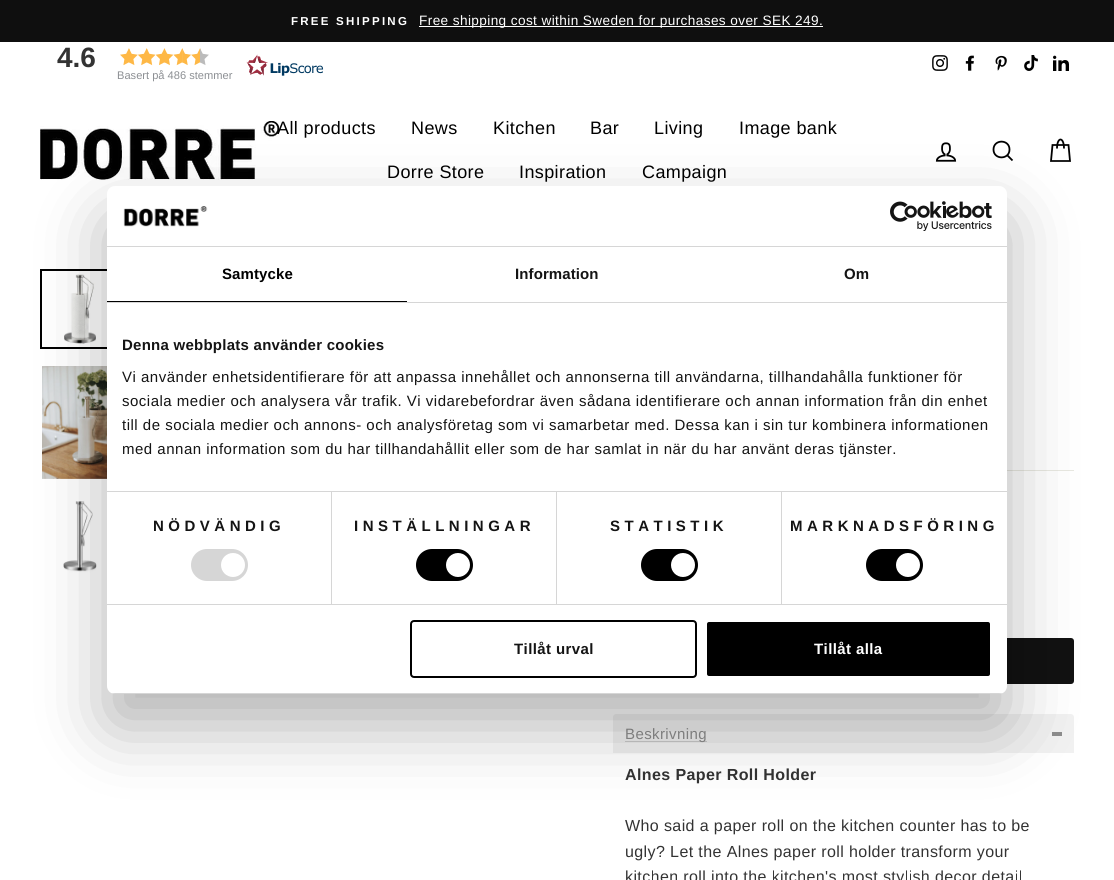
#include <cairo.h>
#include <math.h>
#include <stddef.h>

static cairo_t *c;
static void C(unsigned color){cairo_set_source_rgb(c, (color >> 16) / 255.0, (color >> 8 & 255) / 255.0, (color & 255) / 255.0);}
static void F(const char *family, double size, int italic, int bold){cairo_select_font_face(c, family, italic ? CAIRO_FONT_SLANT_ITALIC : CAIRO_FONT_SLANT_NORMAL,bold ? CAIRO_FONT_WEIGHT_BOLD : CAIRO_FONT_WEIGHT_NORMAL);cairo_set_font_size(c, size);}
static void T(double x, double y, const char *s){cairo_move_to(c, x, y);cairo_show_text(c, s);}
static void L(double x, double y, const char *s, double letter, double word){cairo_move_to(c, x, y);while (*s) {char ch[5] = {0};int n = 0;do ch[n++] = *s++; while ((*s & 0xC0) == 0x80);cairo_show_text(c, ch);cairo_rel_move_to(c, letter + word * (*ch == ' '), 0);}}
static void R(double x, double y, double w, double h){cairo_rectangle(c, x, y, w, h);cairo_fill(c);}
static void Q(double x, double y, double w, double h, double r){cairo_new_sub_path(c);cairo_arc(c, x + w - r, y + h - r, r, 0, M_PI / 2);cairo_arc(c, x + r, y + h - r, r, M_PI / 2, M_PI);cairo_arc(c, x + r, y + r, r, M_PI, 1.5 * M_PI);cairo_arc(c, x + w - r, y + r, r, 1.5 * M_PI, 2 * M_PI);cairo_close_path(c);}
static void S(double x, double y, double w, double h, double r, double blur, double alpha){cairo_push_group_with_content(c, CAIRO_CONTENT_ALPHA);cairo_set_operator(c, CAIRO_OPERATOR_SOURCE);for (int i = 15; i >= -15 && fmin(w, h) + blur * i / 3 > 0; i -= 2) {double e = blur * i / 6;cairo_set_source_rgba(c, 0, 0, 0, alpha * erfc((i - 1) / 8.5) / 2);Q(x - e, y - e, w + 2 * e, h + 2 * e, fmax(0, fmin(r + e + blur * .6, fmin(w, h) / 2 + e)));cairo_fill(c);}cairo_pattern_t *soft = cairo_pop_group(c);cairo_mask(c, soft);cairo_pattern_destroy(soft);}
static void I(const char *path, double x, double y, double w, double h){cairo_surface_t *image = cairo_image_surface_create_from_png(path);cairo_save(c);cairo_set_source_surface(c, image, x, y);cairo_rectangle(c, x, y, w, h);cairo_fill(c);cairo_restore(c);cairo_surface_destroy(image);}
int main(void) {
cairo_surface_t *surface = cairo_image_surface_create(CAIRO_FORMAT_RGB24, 1114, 880);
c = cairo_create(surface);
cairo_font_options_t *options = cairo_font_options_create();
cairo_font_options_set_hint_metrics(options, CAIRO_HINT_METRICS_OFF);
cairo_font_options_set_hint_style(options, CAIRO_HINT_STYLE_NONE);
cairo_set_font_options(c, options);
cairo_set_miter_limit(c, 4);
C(0xffffff);
cairo_paint(c);
C(0x0f0f0f);
R(0,0,1114,42);
F("Arimo",11.5,0,1);
C(0xffffff);
L(291,25,"FREE SHIPPING",2.25,0);
R(419,26,404,1);
F("Arimo",13.6,0,0);
L(419,25,"Free shipping cost within Sweden for purchases over SEK 249.",.4,0);
F("Liberation Sans",28,0,1);
C(0x333333);
T(57,67,"4.6");
I("1.png",120,48,204,28);
F("Liberation Sans",11.1,0,0);
C(0x8c8f93);
T(117,79,"Basert på 486 stemmer");
I("2.png",932,55,16,16);
I("3.png",965,55,9,16);
I("4.png",995,55,12,16);
I("5.png",1024,55,14,16);
I("6.png",1053,55,16,16);
I("7.png",40,121,240,59);
F("Arimo",18,0,0);
C(0x000000);
L(277,134,"All products",.4,0);
L(411,134,"News",.4,0);
L(493,134,"Kitchen",.4,0);
L(590,134,"Bar",.4,0);
L(654,134,"Living",.4,0);
L(739,134,"Image bank",.4,0);
L(387,178,"Dorre Store",.4,0);
L(519,178,"Inspiration",.4,0);
L(642,178,"Campaign",.4,0);
I("8.png",935,142,22,20);
cairo_new_path(c);
cairo_move_to(c,1009.5,149.5);
cairo_curve_to(c,1009.5,160,993.5,160,993.5,149.5);
cairo_curve_to(c,993.5,139,1009.5,139,1009.5,149.5);
cairo_close_path(c);
cairo_move_to(c,1012.5,160.5);
cairo_line_to(c,1007.5,155.5);
cairo_set_line_width(c,1.8);
cairo_stroke(c);
cairo_new_path(c);
cairo_move_to(c,1057,148.5);
cairo_curve_to(c,1057,136.5,1064,136.5,1064,148.5);
cairo_move_to(c,1052.5,145);
cairo_line_to(c,1068.5,145);
cairo_line_to(c,1070,161);
cairo_line_to(c,1051,161);
cairo_close_path(c);
cairo_stroke(c);
cairo_rectangle(c,41,270,78,78);
cairo_set_line_width(c,2);
cairo_stroke(c);
I("9.png",42,271,65,76);
I("10.png",42,366,65,113);
I("11.png",42,498,65,76);
C(0xe8e8e1);
R(1007,470,67,1);
C(0x111111);
Q(613,638,461,46,3);
cairo_fill(c);
C(0xf1f1f1);
cairo_new_path(c);
cairo_move_to(c,616,714);
cairo_line_to(c,1071,714);
cairo_curve_to(c,1072.5,714,1074,715.5,1074,717);
cairo_line_to(c,1074,753);
cairo_line_to(c,613,753);
cairo_line_to(c,613,717);
cairo_curve_to(c,613,715.5,614.5,714,616,714);
cairo_close_path(c);
cairo_fill(c);
C(0xcdcdcd);
R(625,741,82,1);
F("Arimo",15,0,0);
C(0x8d8d8d);
L(625,739,"Beskrivning",.4,0);
R(1052,732,10,4);
F("Arimo",16,0,1);
C(0x333333);
L(625,780,"Alnes Paper Roll Holder",.4,0);
F("Arimo",16,0,0);
L(625,831,"Who said a paper roll on the kitchen counter has to be",.4,0);
L(625,857,"ugly? Let the Alnes paper roll holder transform your",.4,0);
L(625,882,"kitchen roll into the kitchen's most stylish decor detail",.4,0);
C(0x000000);
S(107,218,900,508,8,34,.3);
C(0xffffff);
Q(107,186,900,508,8);
cairo_fill(c);
C(0xd6d6d6);
R(107,246,900,1);
I("12.png",123,206,85,21);
I("13.png",890,201,102,30);
R(107,302,900,1);
C(0x000000);
R(107,301,300,1);
F("Liberation Sans",15,0,1);
L(222,279,"Samtycke",.1,0);
C(0x141414);
L(515,279,"Information",.1,0);
L(844,279,"Om",.1,0);
C(0xd6d6d6);
R(107,491,900,1);
C(0x141414);
L(122,350,"Denna webbplats använder cookies",.25,0);
F("Liberation Sans",15,0,0);
L(122,382,"Vi använder enhetsidentifierare för att anpassa innehållet och annonserna till användarna, tillhandahålla funktioner för",.5,0);
L(122,406,"sociala medier och analysera vår trafik. Vi vidarebefordrar även sådana identifierare och annan information från din enhet",.5,0);
L(122,430,"till de sociala medier och annons- och analysföretag som vi samarbetar med. Dessa kan i sin tur kombinera informationen",.5,0);
L(122,454,"med annan information som du har tillhandahållit eller som de har samlat in när du har använt deras tjänster.",.5,0);
C(0xd6d6d6);
R(107,604,900,1);
R(331,492,1,112);
F("Liberation Sans",15,0,1);
C(0x141414);
L(153,531,"NÖDVÄNDIG",4.5,0);
C(0xd6d6d6);
Q(191,549,57,32,16);
cairo_fill(c);
C(0xffffff);
cairo_arc(c,233,565,12,0,2 * M_PI);
cairo_fill(c);
C(0xd6d6d6);
R(556,492,1,112);
C(0x141414);
L(354,531,"INSTÄLLNINGAR",4.5,0);
C(0x000000);
Q(416,549,57,32,16);
cairo_fill(c);
C(0xffffff);
cairo_arc(c,458,565,12,0,2 * M_PI);
cairo_fill(c);
C(0xd6d6d6);
R(781,492,1,112);
C(0x141414);
L(610,531,"STATISTIK",4.5,0);
C(0x000000);
Q(641,549,57,32,16);
cairo_fill(c);
C(0xffffff);
cairo_arc(c,683,565,12,0,2 * M_PI);
cairo_fill(c);
C(0x141414);
L(790,531,"MARKNADSFÖRING",4.5,0);
C(0x000000);
Q(866,549,57,32,16);
cairo_fill(c);
C(0xffffff);
cairo_arc(c,908,565,12,0,2 * M_PI);
cairo_fill(c);
cairo_save(c);
Q(107,186,900,508,8);
cairo_clip(c);
C(0xd6d6d6);
R(107,693,900,1);
cairo_restore(c);
Q(411,621,285,56,3);
C(0x000000);
cairo_stroke(c);
C(0x141414);
L(514,654,"Tillåt urval",.4,0);
C(0x000000);
Q(706,621,285,56,3);
cairo_fill_preserve(c);
C(0xffffff);
cairo_stroke(c);
L(814,654,"Tillåt alla",.4,0);
cairo_surface_write_to_png(surface, "o.png");
cairo_font_options_destroy(options);
cairo_destroy(c);
cairo_surface_destroy(surface);
return 0;
}
